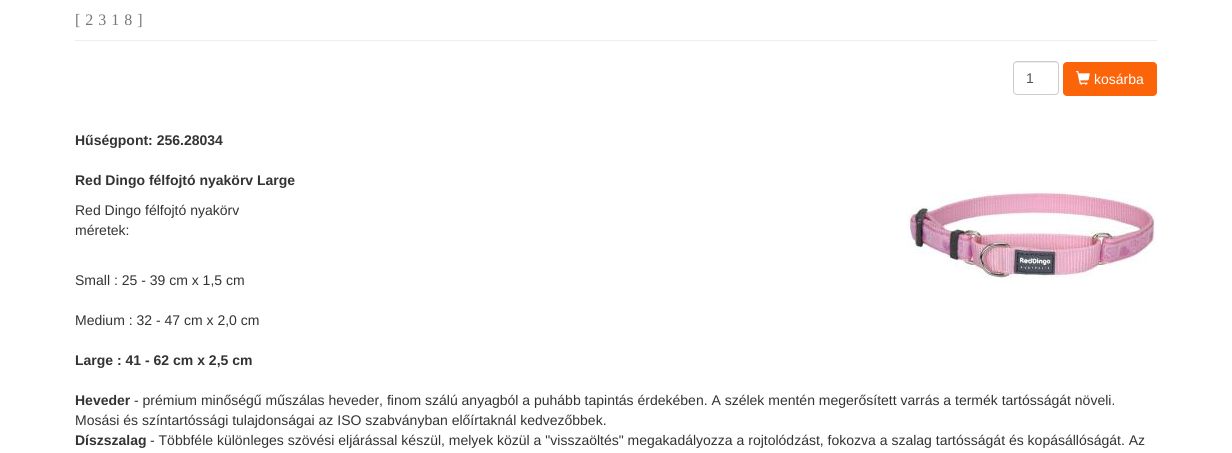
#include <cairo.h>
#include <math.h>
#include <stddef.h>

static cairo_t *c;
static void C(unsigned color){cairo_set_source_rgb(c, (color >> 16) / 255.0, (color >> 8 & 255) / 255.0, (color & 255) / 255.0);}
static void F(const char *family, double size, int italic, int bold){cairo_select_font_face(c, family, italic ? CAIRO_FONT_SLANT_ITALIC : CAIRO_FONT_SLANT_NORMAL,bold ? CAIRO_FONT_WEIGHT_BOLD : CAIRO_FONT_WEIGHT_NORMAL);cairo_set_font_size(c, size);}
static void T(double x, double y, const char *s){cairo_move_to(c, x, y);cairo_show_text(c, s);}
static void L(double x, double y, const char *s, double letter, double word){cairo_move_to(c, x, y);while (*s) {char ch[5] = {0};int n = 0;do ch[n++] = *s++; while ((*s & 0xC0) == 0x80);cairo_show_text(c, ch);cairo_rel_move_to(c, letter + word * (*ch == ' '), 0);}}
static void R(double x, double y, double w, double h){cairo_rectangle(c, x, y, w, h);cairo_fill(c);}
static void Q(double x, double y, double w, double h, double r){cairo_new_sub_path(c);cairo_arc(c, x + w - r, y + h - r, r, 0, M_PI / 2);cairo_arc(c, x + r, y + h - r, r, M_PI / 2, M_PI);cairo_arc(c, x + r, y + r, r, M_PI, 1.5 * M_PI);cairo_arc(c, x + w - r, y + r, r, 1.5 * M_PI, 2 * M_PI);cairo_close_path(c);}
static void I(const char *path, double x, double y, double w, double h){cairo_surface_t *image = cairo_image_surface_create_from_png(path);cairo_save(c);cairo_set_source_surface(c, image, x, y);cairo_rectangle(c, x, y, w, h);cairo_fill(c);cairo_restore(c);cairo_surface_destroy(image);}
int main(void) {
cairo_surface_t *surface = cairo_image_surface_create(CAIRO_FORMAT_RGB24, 1232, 453);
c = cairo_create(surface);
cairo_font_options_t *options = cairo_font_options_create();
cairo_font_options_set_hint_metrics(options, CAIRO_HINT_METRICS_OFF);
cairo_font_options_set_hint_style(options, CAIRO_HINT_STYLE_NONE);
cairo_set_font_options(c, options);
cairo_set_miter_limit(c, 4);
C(0xffffff);
cairo_paint(c);
C(0xeeeeee);
R(75,40,1082,1);
F("Liberation Serif",16,0,0);
C(0x777777);
L(75,25,"[2318]",5,0);
C(0xececec);
cairo_new_path(c);
cairo_move_to(c,1017,63);
cairo_line_to(c,1055,63);
cairo_curve_to(c,1057,63,1058,64,1058,66);
cairo_curve_to(c,1058,61,1053,62,1049,62);
cairo_line_to(c,1023,62);
cairo_curve_to(c,1019,62,1014,61,1014,66);
cairo_curve_to(c,1014,64,1015,63,1017,63);
cairo_close_path(c);
cairo_fill(c);
Q(1013.5,61.5,45,33,3.5);
C(0xcccccc);
cairo_set_line_width(c,1);
cairo_stroke(c);
F("Liberation Sans",14,0,0);
C(0x555555);
T(1026,83,"1");
C(0xfc640a);
Q(1063.5,62.5,93,33,3.5);
cairo_fill_preserve(c);
cairo_stroke(c);
I("1.png",1076,71,14,14);
C(0xffffff);
T(1094,84,"kosárba");
F("Liberation Sans",14,0,1);
C(0x333333);
T(75,145,"Hűségpont: 256.28034");
T(75,185,"Red Dingo félfojtó nyakörv Large");
F("Liberation Sans",14,0,0);
T(75,215,"Red Dingo félfojtó nyakörv");
T(75,235,"méretek:");
T(75,285,"Small : 25 - 39 cm x 1,5 cm");
T(75,325,"Medium : 32 - 47 cm x 2,0 cm");
F("Liberation Sans",14,0,1);
T(75,365,"Large : 41 - 62 cm x 2,5 cm");
T(75,405,"Heveder");
F("Liberation Sans",14,0,0);
T(134,405,"- prémium minőségű műszálas heveder, finom szálú anyagból a puhább tapintás érdekében. A szélek mentén megerősített varrás a termék tartósságát növeli.");
T(75,425,"Mosási és színtartóssági tulajdonságai az ISO szabványban előírtaknál kedvezőbbek.");
F("Liberation Sans",14,0,1);
T(75,445,"Díszszalag");
F("Liberation Sans",14,0,0);
T(150,445,"- Többféle különleges szövési eljárással készül, melyek közül a \"visszaöltés\" megakadályozza a rojtolódzást, fokozva a szalag tartósságát és kopásállóságát. Az");
I("2.png",907,190,248,92);
cairo_surface_write_to_png(surface, "o.png");
cairo_font_options_destroy(options);
cairo_destroy(c);
cairo_surface_destroy(surface);
return 0;
}
